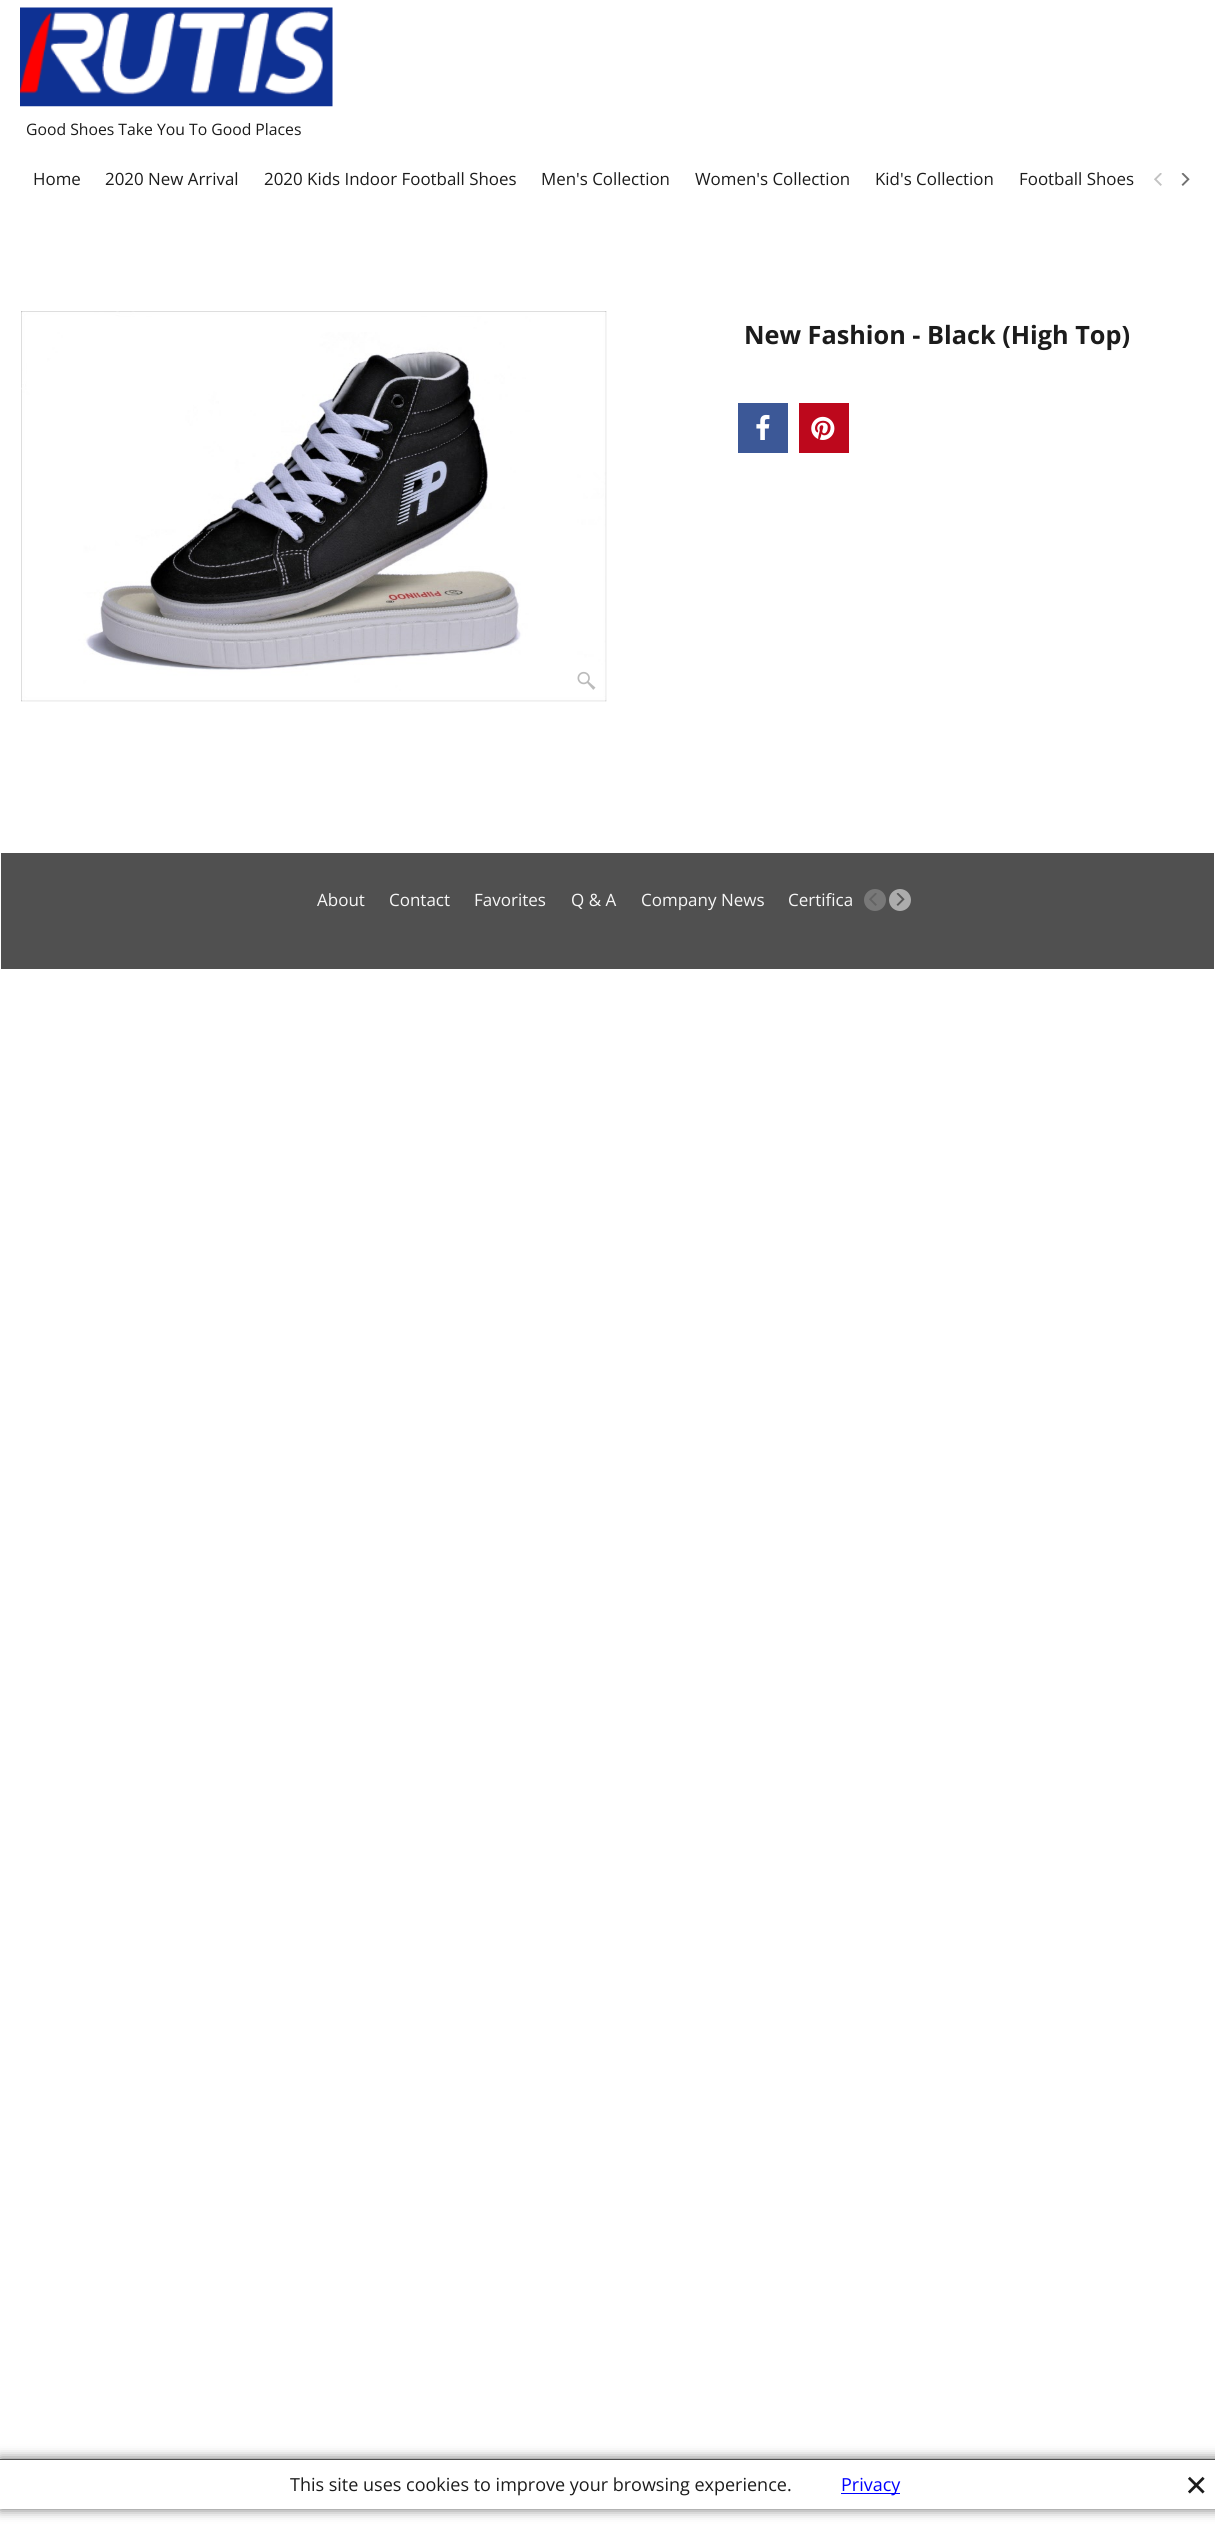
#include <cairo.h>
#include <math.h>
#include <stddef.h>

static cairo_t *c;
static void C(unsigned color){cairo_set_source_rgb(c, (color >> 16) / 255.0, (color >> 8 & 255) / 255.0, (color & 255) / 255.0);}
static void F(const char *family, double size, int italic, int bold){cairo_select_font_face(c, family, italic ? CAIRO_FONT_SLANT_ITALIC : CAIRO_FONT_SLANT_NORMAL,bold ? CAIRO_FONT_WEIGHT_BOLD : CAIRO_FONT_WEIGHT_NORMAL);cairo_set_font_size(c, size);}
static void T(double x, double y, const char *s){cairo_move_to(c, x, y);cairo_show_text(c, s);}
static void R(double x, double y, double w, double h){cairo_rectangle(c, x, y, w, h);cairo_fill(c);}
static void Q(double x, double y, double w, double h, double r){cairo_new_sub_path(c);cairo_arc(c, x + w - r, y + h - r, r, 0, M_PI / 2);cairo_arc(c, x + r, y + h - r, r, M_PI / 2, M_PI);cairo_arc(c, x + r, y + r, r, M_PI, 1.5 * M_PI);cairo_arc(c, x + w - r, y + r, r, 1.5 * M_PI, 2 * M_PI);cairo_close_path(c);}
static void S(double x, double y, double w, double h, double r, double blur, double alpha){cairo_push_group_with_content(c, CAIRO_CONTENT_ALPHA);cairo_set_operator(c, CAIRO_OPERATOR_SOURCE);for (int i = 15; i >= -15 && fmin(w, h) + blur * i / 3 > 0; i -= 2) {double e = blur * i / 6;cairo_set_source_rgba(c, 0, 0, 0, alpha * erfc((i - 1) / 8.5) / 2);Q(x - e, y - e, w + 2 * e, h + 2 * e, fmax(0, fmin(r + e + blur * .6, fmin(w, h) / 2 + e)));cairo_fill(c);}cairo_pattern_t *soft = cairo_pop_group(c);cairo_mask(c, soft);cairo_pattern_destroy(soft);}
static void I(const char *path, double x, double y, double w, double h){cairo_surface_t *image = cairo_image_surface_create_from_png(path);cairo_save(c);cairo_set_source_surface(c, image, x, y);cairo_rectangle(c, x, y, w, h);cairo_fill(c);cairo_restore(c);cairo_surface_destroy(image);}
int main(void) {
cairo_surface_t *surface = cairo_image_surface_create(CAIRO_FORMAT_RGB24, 1215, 2548);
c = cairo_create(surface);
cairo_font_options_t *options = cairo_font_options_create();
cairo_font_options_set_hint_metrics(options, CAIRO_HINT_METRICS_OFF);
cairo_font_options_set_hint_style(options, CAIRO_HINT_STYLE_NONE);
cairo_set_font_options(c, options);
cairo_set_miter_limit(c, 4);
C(0xffffff);
cairo_paint(c);
I("1.png",20,7,313,100);
F("Open Sans",15.75,0,0);
C(0x1c1c1c);
T(26,135,"Good Shoes Take You To Good Places");
F("Open Sans",16.9,0,0);
T(33,185,"Home");
T(105,185,"2020 New Arrival");
T(264,185,"2020 Kids Indoor Football Shoes");
T(541,185,"Men's Collection");
T(695,185,"Women's Collection");
T(875,185,"Kid's Collection");
T(1019,185,"Football Shoes");
I("2.png",1154,173,8,13);
I("3.png",1181,173,9,13);
I("4.png",21,311,586,391);
I("5.png",577,671,19,19);
F("Open Sans",25.25,0,1);
T(744,344,"New Fashion - Black (High Top)");
C(0x3c5897);
R(738,403,50,50);
I("6.png",756,414,14,26);
C(0xbd081c);
R(799,403,50,50);
I("7.png",811,416,24,24);
C(0x505050);
R(1,853,1213,116);
F("Open Sans",17,0,0);
C(0xf7f7f7);
T(317,906,"About");
T(389,906,"Contact");
T(474,906,"Favorites");
T(571,906,"Q & A");
T(641,906,"Company News");
T(788,906,"Certifica");
C(0x787878);
cairo_new_path(c);
cairo_arc(c,875,900,11,0,2 * M_PI);
cairo_fill(c);
I("8.png",869,893,8,13);
C(0xacacac);
cairo_arc(c,900,900,11,0,2 * M_PI);
cairo_fill(c);
I("9.png",896,893,9,13);
C(0x666666);
S(0,2459,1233,50,0,6,1);
C(0xffffff);
R(0,2460,1215,49);
C(0x505050);
R(0,2459,1215,1);
F("Open Sans",18,0,0);
C(0x1c1c1c);
T(290,2491,"This site uses cookies to improve your browsing experience.");
C(0x0000ff);
R(841,2493,59,1);
T(841,2491,"Privacy");
I("10.png",1188,2476,17,18);
cairo_surface_write_to_png(surface, "o.png");
cairo_font_options_destroy(options);
cairo_destroy(c);
cairo_surface_destroy(surface);
return 0;
}
